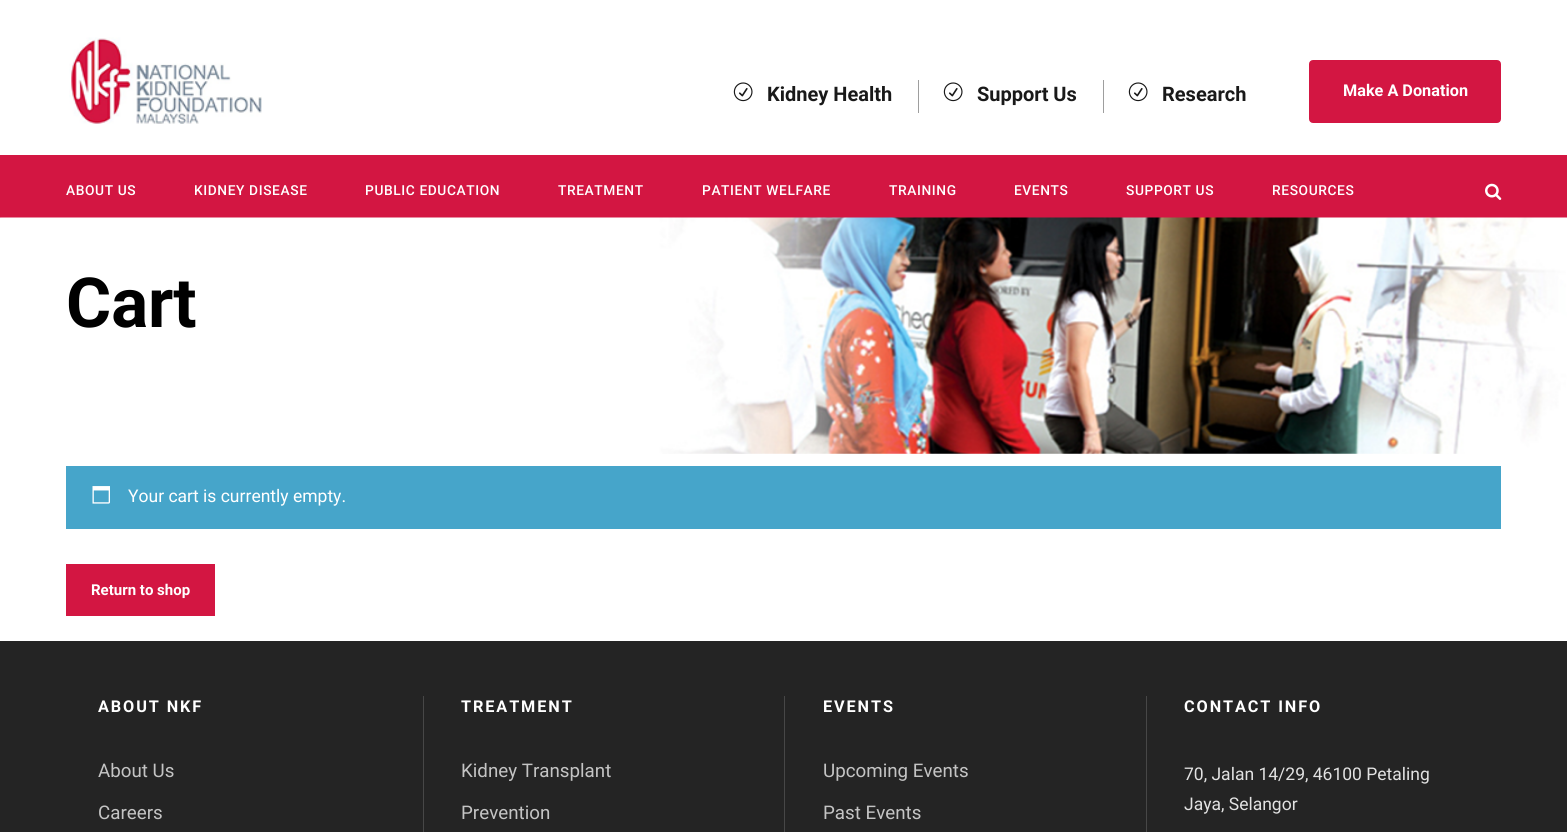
#include <cairo.h>
#include <math.h>
#include <stddef.h>

static cairo_t *c;
static void C(unsigned color){cairo_set_source_rgb(c, (color >> 16) / 255.0, (color >> 8 & 255) / 255.0, (color & 255) / 255.0);}
static void F(const char *family, double size, int italic, int bold){cairo_select_font_face(c, family, italic ? CAIRO_FONT_SLANT_ITALIC : CAIRO_FONT_SLANT_NORMAL,bold ? CAIRO_FONT_WEIGHT_BOLD : CAIRO_FONT_WEIGHT_NORMAL);cairo_set_font_size(c, size);}
static void T(double x, double y, const char *s){cairo_move_to(c, x, y);cairo_show_text(c, s);}
static void L(double x, double y, const char *s, double letter, double word){cairo_move_to(c, x, y);while (*s) {char ch[5] = {0};int n = 0;do ch[n++] = *s++; while ((*s & 0xC0) == 0x80);cairo_show_text(c, ch);cairo_rel_move_to(c, letter + word * (*ch == ' '), 0);}}
static void R(double x, double y, double w, double h){cairo_rectangle(c, x, y, w, h);cairo_fill(c);}
static void Q(double x, double y, double w, double h, double r){cairo_new_sub_path(c);cairo_arc(c, x + w - r, y + h - r, r, 0, M_PI / 2);cairo_arc(c, x + r, y + h - r, r, M_PI / 2, M_PI);cairo_arc(c, x + r, y + r, r, M_PI, 1.5 * M_PI);cairo_arc(c, x + w - r, y + r, r, 1.5 * M_PI, 2 * M_PI);cairo_close_path(c);}
static void I(const char *path, double x, double y, double w, double h){cairo_surface_t *image = cairo_image_surface_create_from_png(path);cairo_save(c);cairo_set_source_surface(c, image, x, y);cairo_rectangle(c, x, y, w, h);cairo_fill(c);cairo_restore(c);cairo_surface_destroy(image);}
int main(void) {
cairo_surface_t *surface = cairo_image_surface_create(CAIRO_FORMAT_RGB24, 1567, 832);
c = cairo_create(surface);
cairo_font_options_t *options = cairo_font_options_create();
cairo_font_options_set_hint_metrics(options, CAIRO_HINT_METRICS_OFF);
cairo_font_options_set_hint_style(options, CAIRO_HINT_STYLE_NONE);
cairo_set_font_options(c, options);
cairo_set_miter_limit(c, 4);
C(0xffffff);
cairo_paint(c);
I("1.png",69,37,193,87);
I("2.png",733,82,20,20);
F("Roboto",20,0,1);
C(0x191919);
T(767,101,"Kidney Health");
C(0x9e9e9e);
R(918,80,1,33);
I("2.png",943,82,20,20);
C(0x191919);
T(977,101,"Support Us");
C(0x9e9e9e);
R(1103,80,1,33);
I("2.png",1128,82,20,20);
C(0x191919);
T(1162,101,"Research");
C(0xd31642);
Q(1310.5,61.5,189,60,2.5);
cairo_fill_preserve(c);
cairo_set_line_width(c,3);
cairo_stroke(c);
F("Roboto",16.25,0,1);
C(0xffffff);
T(1343,96,"Make A Donation");
C(0xd31642);
R(0,155,1567,63);
F("Roboto Medium",13.75,0,0);
C(0xffffff);
L(66,195,"ABOUT US",.6,0);
L(194,195,"KIDNEY DISEASE",.6,0);
L(365,195,"PUBLIC EDUCATION",.6,0);
L(558,195,"TREATMENT",.6,0);
L(702,195,"PATIENT WELFARE",.6,0);
L(889,195,"TRAINING",.6,0);
L(1014,195,"EVENTS",.6,0);
L(1126,195,"SUPPORT US",.6,0);
L(1272,195,"RESOURCES",.6,0);
I("3.png",1485,183,17,17);
I("4.png",0,217,1567,237);
F("Roboto",69,0,1);
C(0x000000);
T(66,327,"Cart");
C(0x46a5ca);
R(66,466,1435,63);
I("5.png",92,486,18,18);
F("Roboto",17.5,0,0);
C(0xffffff);
T(128,502,"Your cart is currently empty.");
C(0xd31642);
R(66,564,149,52);
F("Roboto",15,0,1);
C(0xffffff);
T(91,595,"Return to shop");
C(0x242424);
R(0,641,1567,191);
F("Roboto",16.25,0,1);
C(0xffffff);
L(98,712,"ABOUT NKF",1.9,0);
F("Roboto",18.75,0,0);
C(0xc4c4c4);
T(98,777,"About Us");
T(98,819,"Careers");
C(0x474747);
R(423,696,1,136);
F("Roboto",16.25,0,1);
C(0xffffff);
L(461,712,"TREATMENT",1.9,0);
F("Roboto",18.75,0,0);
C(0xc4c4c4);
T(461,777,"Kidney Transplant");
T(461,819,"Prevention");
C(0x474747);
R(784,696,1,136);
F("Roboto",16.25,0,1);
C(0xffffff);
L(823,712,"EVENTS",1.9,0);
F("Roboto",18.75,0,0);
C(0xc4c4c4);
T(823,777,"Upcoming Events");
T(823,819,"Past Events");
C(0x474747);
R(1146,696,1,136);
F("Roboto",16.25,0,1);
C(0xffffff);
L(1184,712,"CONTACT INFO",1.9,0);
F("Roboto",17.5,0,0);
C(0xe2e2e2);
T(1184,780,"70, Jalan 14/29, 46100 Petaling");
T(1184,810,"Jaya, Selangor");
cairo_surface_write_to_png(surface, "o.png");
cairo_font_options_destroy(options);
cairo_destroy(c);
cairo_surface_destroy(surface);
return 0;
}
